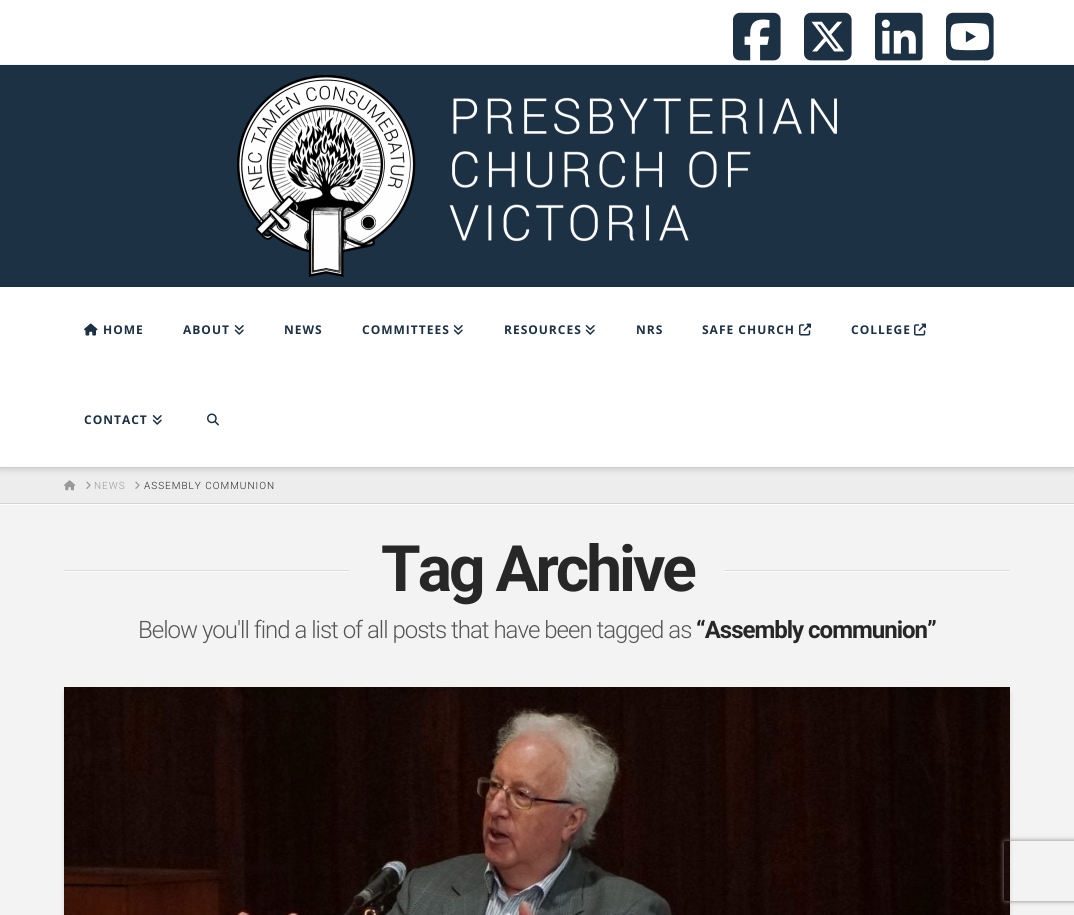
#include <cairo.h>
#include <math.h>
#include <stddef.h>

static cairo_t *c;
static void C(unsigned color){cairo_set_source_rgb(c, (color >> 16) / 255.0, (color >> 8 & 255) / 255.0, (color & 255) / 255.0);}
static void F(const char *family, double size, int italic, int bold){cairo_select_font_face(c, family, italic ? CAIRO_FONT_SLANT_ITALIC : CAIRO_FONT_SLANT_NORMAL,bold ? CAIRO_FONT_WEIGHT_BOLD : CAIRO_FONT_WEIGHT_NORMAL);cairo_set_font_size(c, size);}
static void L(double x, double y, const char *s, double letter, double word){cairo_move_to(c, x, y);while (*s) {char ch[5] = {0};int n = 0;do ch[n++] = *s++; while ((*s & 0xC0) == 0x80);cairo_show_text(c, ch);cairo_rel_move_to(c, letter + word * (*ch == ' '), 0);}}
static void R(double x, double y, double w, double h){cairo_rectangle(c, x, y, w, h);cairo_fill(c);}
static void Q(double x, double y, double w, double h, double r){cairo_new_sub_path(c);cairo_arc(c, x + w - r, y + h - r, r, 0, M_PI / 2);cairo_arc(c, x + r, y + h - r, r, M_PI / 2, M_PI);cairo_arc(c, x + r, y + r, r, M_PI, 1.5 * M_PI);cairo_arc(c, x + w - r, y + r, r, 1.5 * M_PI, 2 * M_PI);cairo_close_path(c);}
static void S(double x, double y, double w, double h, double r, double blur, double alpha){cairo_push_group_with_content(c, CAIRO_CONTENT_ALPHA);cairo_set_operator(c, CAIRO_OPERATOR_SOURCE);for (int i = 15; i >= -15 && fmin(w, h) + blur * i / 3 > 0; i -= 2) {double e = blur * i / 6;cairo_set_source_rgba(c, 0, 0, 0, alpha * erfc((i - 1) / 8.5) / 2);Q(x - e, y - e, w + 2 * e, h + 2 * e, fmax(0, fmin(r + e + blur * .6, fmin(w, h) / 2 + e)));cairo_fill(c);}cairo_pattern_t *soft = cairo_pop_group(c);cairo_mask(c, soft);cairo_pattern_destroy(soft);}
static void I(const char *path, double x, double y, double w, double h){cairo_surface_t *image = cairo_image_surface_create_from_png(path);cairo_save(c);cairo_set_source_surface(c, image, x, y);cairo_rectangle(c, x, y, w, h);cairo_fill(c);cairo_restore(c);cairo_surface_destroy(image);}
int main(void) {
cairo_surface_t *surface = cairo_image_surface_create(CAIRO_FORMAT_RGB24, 1074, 915);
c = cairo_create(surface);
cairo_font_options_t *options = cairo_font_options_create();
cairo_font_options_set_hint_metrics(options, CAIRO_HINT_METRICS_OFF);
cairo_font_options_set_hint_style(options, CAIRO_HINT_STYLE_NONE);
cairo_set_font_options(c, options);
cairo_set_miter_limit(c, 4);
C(0xf3f3f3);
cairo_paint(c);
C(0xffffff);
R(0,0,1074,64);
I("1.png",733,12,48,49);
I("2.png",804,12,48,49);
I("3.png",875,12,48,49);
I("4.png",946,12,48,49);
C(0x1c3144);
R(0,65,1074,222);
I("5.png",237,75,600,202);
C(0xededed);
R(0,468,1074,35);
C(0x000000);
S(0,289,1074,181,0,3,.13);
C(0xffffff);
R(0,287,1074,180);
C(0xcccccc);
R(0,467,1074,1);
I("6.png",84,323,14,13);
F("Open Sans",12,0,1);
C(0x1c3144);
L(103,334,"HOME",1,0);
L(183,334,"ABOUT",1,0);
I("7.png",234,325,10,10);
L(284,334,"NEWS",1,0);
L(362,334,"COMMITTEES",1,0);
I("7.png",453,325,10,10);
L(504,334,"RESOURCES",1,0);
I("7.png",585,325,10,10);
L(636,334,"NRS",1,0);
L(702,334,"SAFE CHURCH",1,0);
I("8.png",799,323,12,13);
L(851,334,"COLLEGE",1,0);
I("8.png",914,323,12,13);
L(84,424,"CONTACT",1,0);
I("7.png",152,415,10,10);
I("9.png",207,413,12,13);
C(0xfcfcfc);
R(0,504,1074,1);
C(0xd5d5d5);
R(0,503,1074,1);
I("10.png",64,480,12,11);
I("11.png",86,481,5,8);
F("Roboto Light",10,0,0);
C(0x999999);
L(94,489,"NEWS",1,0);
I("11.png",135,481,5,8);
C(0x272727);
L(144,489,"ASSEMBLY COMMUNION",1,0);
C(0xfdfdfd);
R(64,571,285,1);
C(0xdbdbdb);
R(64,570,285,1);
F("Roboto",64,0,1);
C(0x272727);
L(381,591,"Tag Archive",-3,0);
C(0xfdfdfd);
R(725,571,285,1);
C(0xdbdbdb);
R(725,570,285,1);
F("Roboto Light",24,0,0);
C(0x555555);
L(138,638,"Below you'll find a list of all posts that have been tagged as",-1,0);
F("Roboto",24,0,1);
C(0x272727);
L(696,638,"“Assembly communion”",-1,0);
C(0x000000);
S(64,693,938,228,0,2,.13);
S(72,693,938,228,0,2,.13);
I("12.png",64,687,946,228);
cairo_save(c);
cairo_set_fill_rule(c,CAIRO_FILL_RULE_EVEN_ODD);
cairo_new_path(c);
cairo_move_to(c,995,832);
cairo_line_to(c,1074,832);
cairo_line_to(c,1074,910);
cairo_line_to(c,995,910);
cairo_close_path(c);
cairo_move_to(c,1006,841);
cairo_line_to(c,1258,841);
cairo_curve_to(c,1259,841,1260,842,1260,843);
cairo_line_to(c,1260,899);
cairo_curve_to(c,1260,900,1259,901,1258,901);
cairo_line_to(c,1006,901);
cairo_curve_to(c,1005,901,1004,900,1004,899);
cairo_line_to(c,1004,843);
cairo_curve_to(c,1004,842,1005,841,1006,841);
cairo_close_path(c);
cairo_clip(c);
C(0x808080);
S(1004,841,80,60,2,2.5,1);
cairo_restore(c);
cairo_surface_write_to_png(surface, "o.png");
cairo_font_options_destroy(options);
cairo_destroy(c);
cairo_surface_destroy(surface);
return 0;
}
